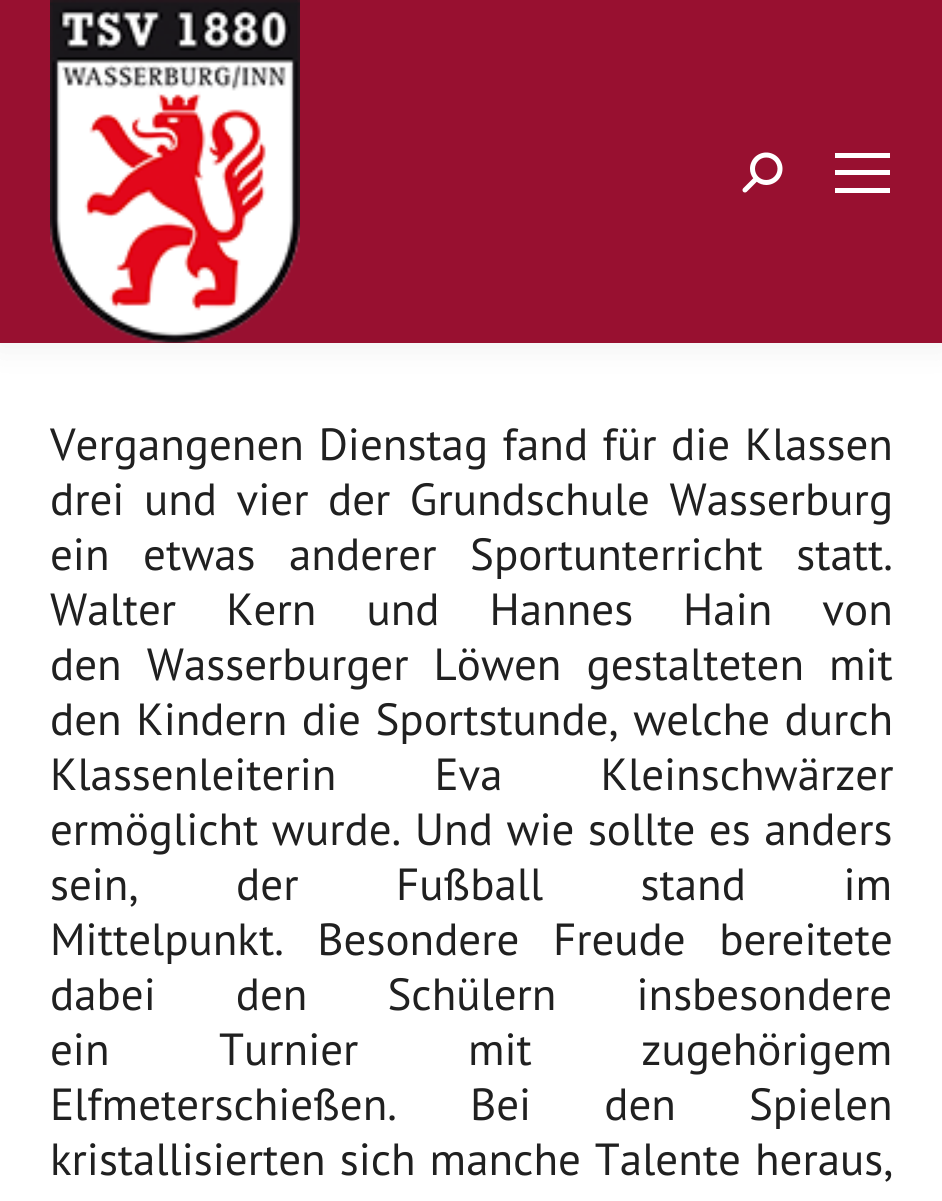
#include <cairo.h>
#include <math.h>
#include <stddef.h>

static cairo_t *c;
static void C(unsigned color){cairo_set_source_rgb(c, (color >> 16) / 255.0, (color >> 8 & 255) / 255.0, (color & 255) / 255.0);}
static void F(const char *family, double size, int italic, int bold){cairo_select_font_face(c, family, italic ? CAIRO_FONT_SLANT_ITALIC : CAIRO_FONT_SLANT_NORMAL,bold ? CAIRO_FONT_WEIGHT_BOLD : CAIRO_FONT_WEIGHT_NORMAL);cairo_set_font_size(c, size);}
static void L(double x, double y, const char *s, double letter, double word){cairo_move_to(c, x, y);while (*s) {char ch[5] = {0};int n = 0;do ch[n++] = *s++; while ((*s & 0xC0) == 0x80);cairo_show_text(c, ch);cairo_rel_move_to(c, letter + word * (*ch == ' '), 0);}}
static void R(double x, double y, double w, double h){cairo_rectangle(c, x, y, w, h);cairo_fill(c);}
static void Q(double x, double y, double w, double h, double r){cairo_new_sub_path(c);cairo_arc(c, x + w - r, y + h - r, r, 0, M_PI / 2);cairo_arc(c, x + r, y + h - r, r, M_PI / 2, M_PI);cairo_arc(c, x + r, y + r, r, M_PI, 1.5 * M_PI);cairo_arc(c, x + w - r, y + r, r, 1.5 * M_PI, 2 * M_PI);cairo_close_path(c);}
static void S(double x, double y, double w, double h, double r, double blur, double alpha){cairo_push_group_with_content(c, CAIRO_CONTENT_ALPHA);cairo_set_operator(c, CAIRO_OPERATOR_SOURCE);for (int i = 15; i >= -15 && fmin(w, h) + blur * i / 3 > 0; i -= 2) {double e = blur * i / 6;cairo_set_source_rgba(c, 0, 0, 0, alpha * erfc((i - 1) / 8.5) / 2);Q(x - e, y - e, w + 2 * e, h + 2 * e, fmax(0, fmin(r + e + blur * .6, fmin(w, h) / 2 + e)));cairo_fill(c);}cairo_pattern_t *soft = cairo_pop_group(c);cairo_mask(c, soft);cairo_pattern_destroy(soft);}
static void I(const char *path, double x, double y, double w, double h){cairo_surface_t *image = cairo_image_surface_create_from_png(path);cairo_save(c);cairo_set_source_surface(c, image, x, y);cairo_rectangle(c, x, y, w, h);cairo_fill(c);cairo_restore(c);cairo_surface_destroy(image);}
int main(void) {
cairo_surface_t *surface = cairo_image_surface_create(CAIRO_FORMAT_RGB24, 942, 1201);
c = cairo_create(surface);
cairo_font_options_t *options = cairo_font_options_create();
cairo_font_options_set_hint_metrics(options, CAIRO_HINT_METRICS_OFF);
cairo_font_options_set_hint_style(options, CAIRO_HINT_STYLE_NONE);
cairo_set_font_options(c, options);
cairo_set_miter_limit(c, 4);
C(0xffffff);
cairo_paint(c);
C(0x000000);
S(-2,-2,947,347,0,19,.07);
C(0x981030);
R(0,0,942,343);
I("1.png",50,0,250,343);
I("2.png",742,152,41,41);
C(0xffffff);
R(835,153,55,5);
R(835,170,55,5);
R(835,188,55,5);
F("PT Sans",45,0,0);
C(0x202020);
L(50,460,"Vergangenen Dienstag fand für die Klassen",0,2.5);
L(50,515,"drei und vier der Grundschule Wasserburg",0,7.5);
L(50,570,"ein etwas anderer Sportunterricht statt.",0,21.5);
L(50,625,"Walter Kern und Hannes Hain von",0,38);
L(50,680,"den Wasserburger Löwen gestalteten mit",0,13);
L(50,735,"den Kindern die Sportstunde, welche durch",0,2.5);
L(50,790,"Klassenleiterin Eva Kleinschwärzer",0,86);
L(50,845,"ermöglicht wurde. Und wie sollte es anders",0,1.5);
L(50,900,"sein, der Fußball stand im",0,85.5);
L(50,955,"Mittelpunkt. Besondere Freude bereitete",0,21.5);
L(50,1010,"dabei den Schülern insbesondere",0,68);
L(50,1065,"ein Turnier mit zugehörigem",0,97.5);
L(50,1120,"Elfmeterschießen. Bei den Spielen",0,61);
L(50,1175,"kristallisierten sich manche Talente heraus,",0,2);
cairo_surface_write_to_png(surface, "o.png");
cairo_font_options_destroy(options);
cairo_destroy(c);
cairo_surface_destroy(surface);
return 0;
}
